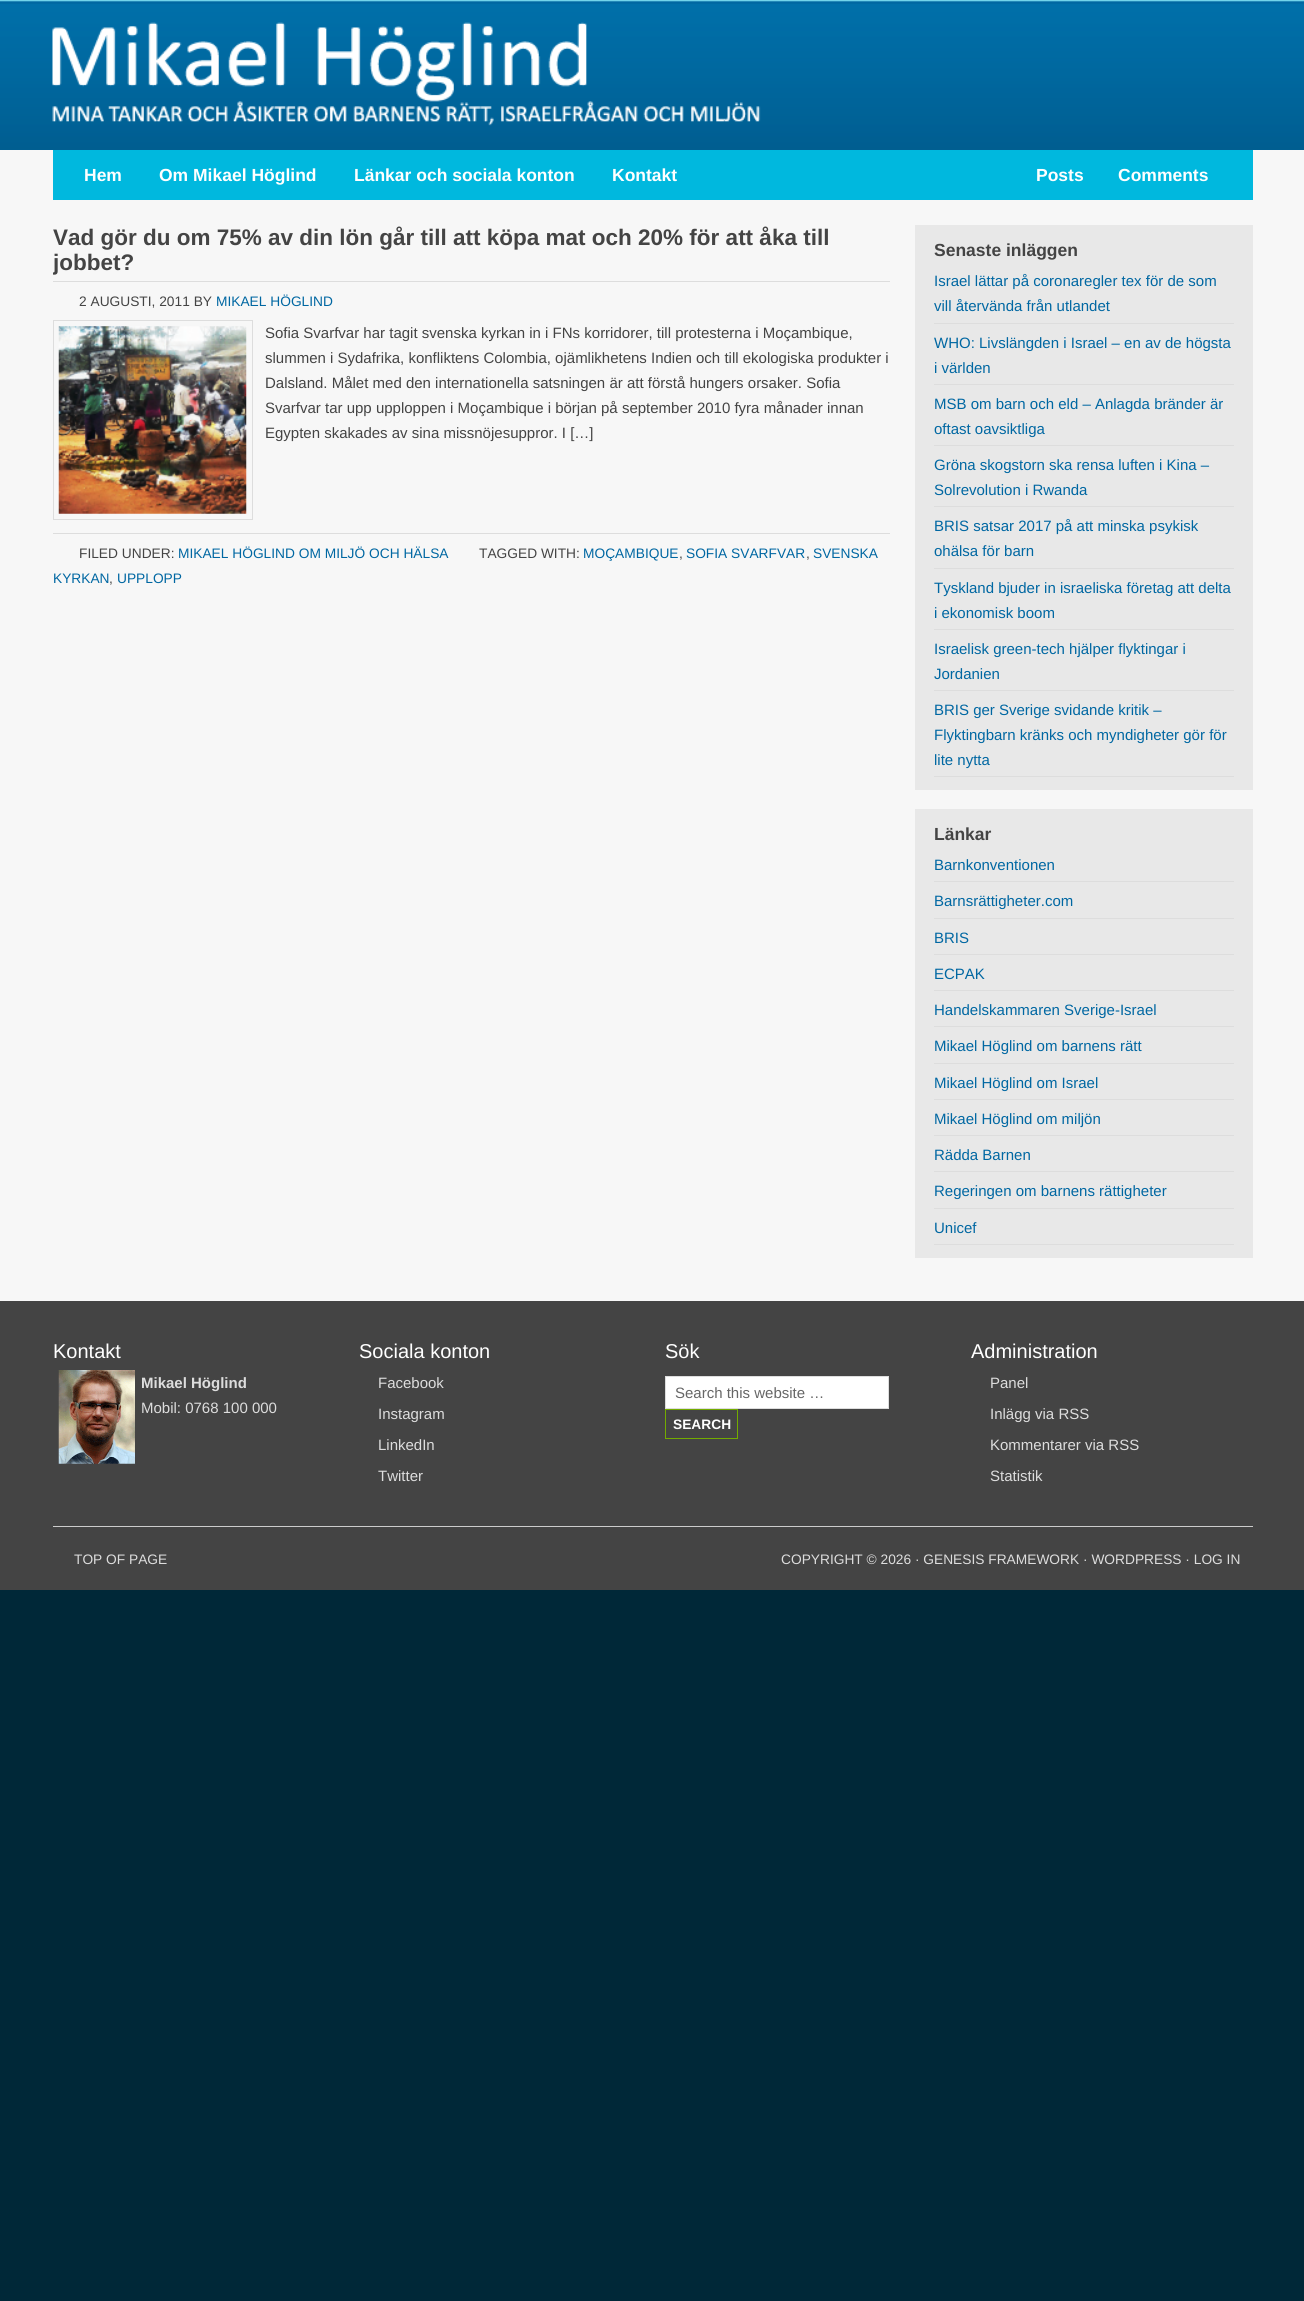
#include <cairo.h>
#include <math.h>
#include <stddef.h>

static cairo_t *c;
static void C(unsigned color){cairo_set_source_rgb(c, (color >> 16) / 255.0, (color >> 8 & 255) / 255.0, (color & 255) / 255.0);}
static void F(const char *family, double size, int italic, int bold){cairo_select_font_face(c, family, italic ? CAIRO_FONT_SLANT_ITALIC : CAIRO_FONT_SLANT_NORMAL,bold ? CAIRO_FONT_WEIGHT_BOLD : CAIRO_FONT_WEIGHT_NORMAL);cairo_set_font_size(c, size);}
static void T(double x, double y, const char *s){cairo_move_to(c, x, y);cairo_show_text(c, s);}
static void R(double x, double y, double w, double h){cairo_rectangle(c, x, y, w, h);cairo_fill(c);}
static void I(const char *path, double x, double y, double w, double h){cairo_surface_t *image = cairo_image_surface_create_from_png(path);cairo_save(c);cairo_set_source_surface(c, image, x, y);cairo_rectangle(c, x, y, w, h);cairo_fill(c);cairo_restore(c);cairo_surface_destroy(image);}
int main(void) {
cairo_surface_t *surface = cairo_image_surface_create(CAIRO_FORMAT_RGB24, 1304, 2301);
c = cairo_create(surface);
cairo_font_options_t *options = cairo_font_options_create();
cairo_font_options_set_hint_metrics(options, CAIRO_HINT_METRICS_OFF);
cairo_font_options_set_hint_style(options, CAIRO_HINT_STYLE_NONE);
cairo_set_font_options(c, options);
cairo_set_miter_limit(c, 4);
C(0x002838);
cairo_paint(c);
C(0xf7f7f7);
R(0,150,1304,1151);
I("1.png",0,0,1304,150);
I("2.png",52,22,709,104);
C(0x00b8de);
R(53,150,1200,50);
F("Liberation Sans",17.5,0,1);
C(0xffffff);
T(84,181,"Hem");
T(159,181,"Om Mikael Höglind");
T(354,181,"Länkar och sociala konton");
T(612,181,"Kontakt");
T(1036,181,"Posts");
T(1118,181,"Comments");
C(0xdddddd);
R(53,281,837,1);
F("Liberation Sans",22.5,0,1);
C(0x444444);
T(53,245,"Vad gör du om 75% av din lön går till att köpa mat och 20% för att åka till");
cairo_save(c);
cairo_rectangle(c,53,225,1200,1051);
cairo_clip(c);
T(53,270,"jobbet?");
cairo_restore(c);
F("Liberation Sans",13.75,0,0);
T(79,306,"2 AUGUSTI, 2011 BY");
C(0x0067a2);
T(216,306,"MIKAEL HÖGLIND");
cairo_rectangle(c,53.5,320.5,199,199);
C(0xdddddd);
cairo_set_line_width(c,1);
cairo_stroke(c);
I("3.png",58,326,189,188);
F("Liberation Sans",15,0,0);
C(0x444444);
T(265,338,"Sofia Svarfvar har tagit svenska kyrkan in i FNs korridorer, till protesterna i Moçambique,");
T(265,363,"slummen i Sydafrika, konfliktens Colombia, ojämlikhetens Indien och till ekologiska produkter i");
T(265,388,"Dalsland. Målet med den internationella satsningen är att förstå hungers orsaker. Sofia");
T(265,413,"Svarfvar tar upp upploppen i Moçambique i början på september 2010 fyra månader innan");
T(265,438,"Egypten skakades av sina missnöjesuppror. I […]");
C(0xdddddd);
R(53,533,837,1);
F("Liberation Sans",13.75,0,0);
C(0x444444);
T(79,558,"FILED UNDER:");
C(0x0067a2);
T(178,558,"MIKAEL HÖGLIND OM MILJÖ OCH HÄLSA");
C(0x444444);
T(479,558,"TAGGED WITH:");
C(0x0067a2);
T(583,558,"MOÇAMBIQUE");
C(0x444444);
T(679,558,",");
C(0x0067a2);
T(686,558,"SOFIA SVARFVAR");
C(0x444444);
T(806,558,",");
C(0x0067a2);
T(813,558,"SVENSKA");
T(53,583,"KYRKAN");
C(0x444444);
T(109,583,",");
C(0x0067a2);
T(117,583,"UPPLOPP");
C(0xe8e8e8);
R(915,225,338,565);
F("Liberation Sans",17.5,0,1);
C(0x444444);
T(934,256,"Senaste inläggen");
C(0xdddddd);
R(934,323,300,1);
F("Liberation Sans",15,0,0);
C(0x0067a2);
T(934,286,"Israel lättar på coronaregler tex för de som");
T(934,311,"vill återvända från utlandet");
C(0xdddddd);
R(934,384,300,1);
C(0x0067a2);
T(934,348,"WHO: Livslängden i Israel – en av de högsta");
T(934,373,"i världen");
C(0xdddddd);
R(934,445,300,1);
C(0x0067a2);
T(934,409,"MSB om barn och eld – Anlagda bränder är");
T(934,434,"oftast oavsiktliga");
C(0xdddddd);
R(934,506,300,1);
C(0x0067a2);
T(934,470,"Gröna skogstorn ska rensa luften i Kina –");
T(934,495,"Solrevolution i Rwanda");
C(0xdddddd);
R(934,568,300,1);
C(0x0067a2);
T(934,531,"BRIS satsar 2017 på att minska psykisk");
T(934,556,"ohälsa för barn");
C(0xdddddd);
R(934,629,300,1);
C(0x0067a2);
T(934,593,"Tyskland bjuder in israeliska företag att delta");
T(934,618,"i ekonomisk boom");
C(0xdddddd);
R(934,690,300,1);
C(0x0067a2);
T(934,654,"Israelisk green-tech hjälper flyktingar i");
T(934,679,"Jordanien");
C(0xdddddd);
R(934,776,300,1);
C(0x0067a2);
T(934,715,"BRIS ger Sverige svidande kritik –");
T(934,740,"Flyktingbarn kränks och myndigheter gör för");
T(934,765,"lite nytta");
C(0xe8e8e8);
R(915,809,338,449);
F("Liberation Sans",17.5,0,1);
C(0x444444);
T(934,840,"Länkar");
C(0xdddddd);
R(934,881,300,1);
F("Liberation Sans",15,0,0);
C(0x0067a2);
T(934,870,"Barnkonventionen");
C(0xdddddd);
R(934,918,300,1);
C(0x0067a2);
T(934,906,"Barnsrättigheter.com");
C(0xdddddd);
R(934,954,300,1);
C(0x0067a2);
T(934,943,"BRIS");
C(0xdddddd);
R(934,990,300,1);
C(0x0067a2);
T(934,979,"ECPAK");
C(0xdddddd);
R(934,1026,300,1);
C(0x0067a2);
T(934,1015,"Handelskammaren Sverige-Israel");
C(0xdddddd);
R(934,1063,300,1);
C(0x0067a2);
T(934,1051,"Mikael Höglind om barnens rätt");
C(0xdddddd);
R(934,1099,300,1);
C(0x0067a2);
T(934,1088,"Mikael Höglind om Israel");
C(0xdddddd);
R(934,1135,300,1);
C(0x0067a2);
T(934,1124,"Mikael Höglind om miljön");
C(0xdddddd);
R(934,1171,300,1);
C(0x0067a2);
T(934,1160,"Rädda Barnen");
C(0xdddddd);
R(934,1208,300,1);
C(0x0067a2);
T(934,1196,"Regeringen om barnens rättigheter");
C(0xdddddd);
R(934,1244,300,1);
C(0x0067a2);
T(934,1233,"Unicef");
C(0x444444);
R(0,1301,1304,289);
F("Liberation Sans",20,0,0);
C(0xffffff);
T(53,1358,"Kontakt");
I("4.png",58,1370,77,94);
F("Liberation Sans",15,0,1);
C(0xdddddd);
T(141,1388,"Mikael Höglind");
F("Liberation Sans",15,0,0);
T(141,1413,"Mobil: 0768 100 000");
F("Liberation Sans",20,0,0);
C(0xffffff);
T(359,1358,"Sociala konton");
F("Liberation Sans",15,0,0);
C(0xdddddd);
T(378,1388,"Facebook");
T(378,1419,"Instagram");
T(378,1450,"LinkedIn");
T(378,1481,"Twitter");
F("Liberation Sans",20,0,0);
C(0xffffff);
T(665,1358,"Sök");
cairo_rectangle(c,665.5,1376.5,223,32);
cairo_fill_preserve(c);
C(0xdddddd);
cairo_stroke(c);
F("Liberation Sans",15,0,0);
C(0x666666);
T(675,1398,"Search this website …");
cairo_rectangle(c,665.5,1409.5,72,29);
C(0x73ab00);
cairo_stroke(c);
F("Liberation Sans",13.75,0,1);
C(0xffffff);
T(673,1429,"SEARCH");
F("Liberation Sans",20,0,0);
T(971,1358,"Administration");
F("Liberation Sans",15,0,0);
C(0xdddddd);
T(990,1388,"Panel");
T(990,1419,"Inlägg via RSS");
T(990,1450,"Kommentarer via RSS");
T(990,1481,"Statistik");
C(0xcccccc);
R(53,1526,1200,1);
F("Liberation Sans",13.75,0,0);
C(0xdddddd);
T(74,1564,"TOP OF PAGE");
T(781,1564,"COPYRIGHT © 2026 · GENESIS FRAMEWORK · WORDPRESS · LOG IN");
cairo_surface_write_to_png(surface, "o.png");
cairo_font_options_destroy(options);
cairo_destroy(c);
cairo_surface_destroy(surface);
return 0;
}
